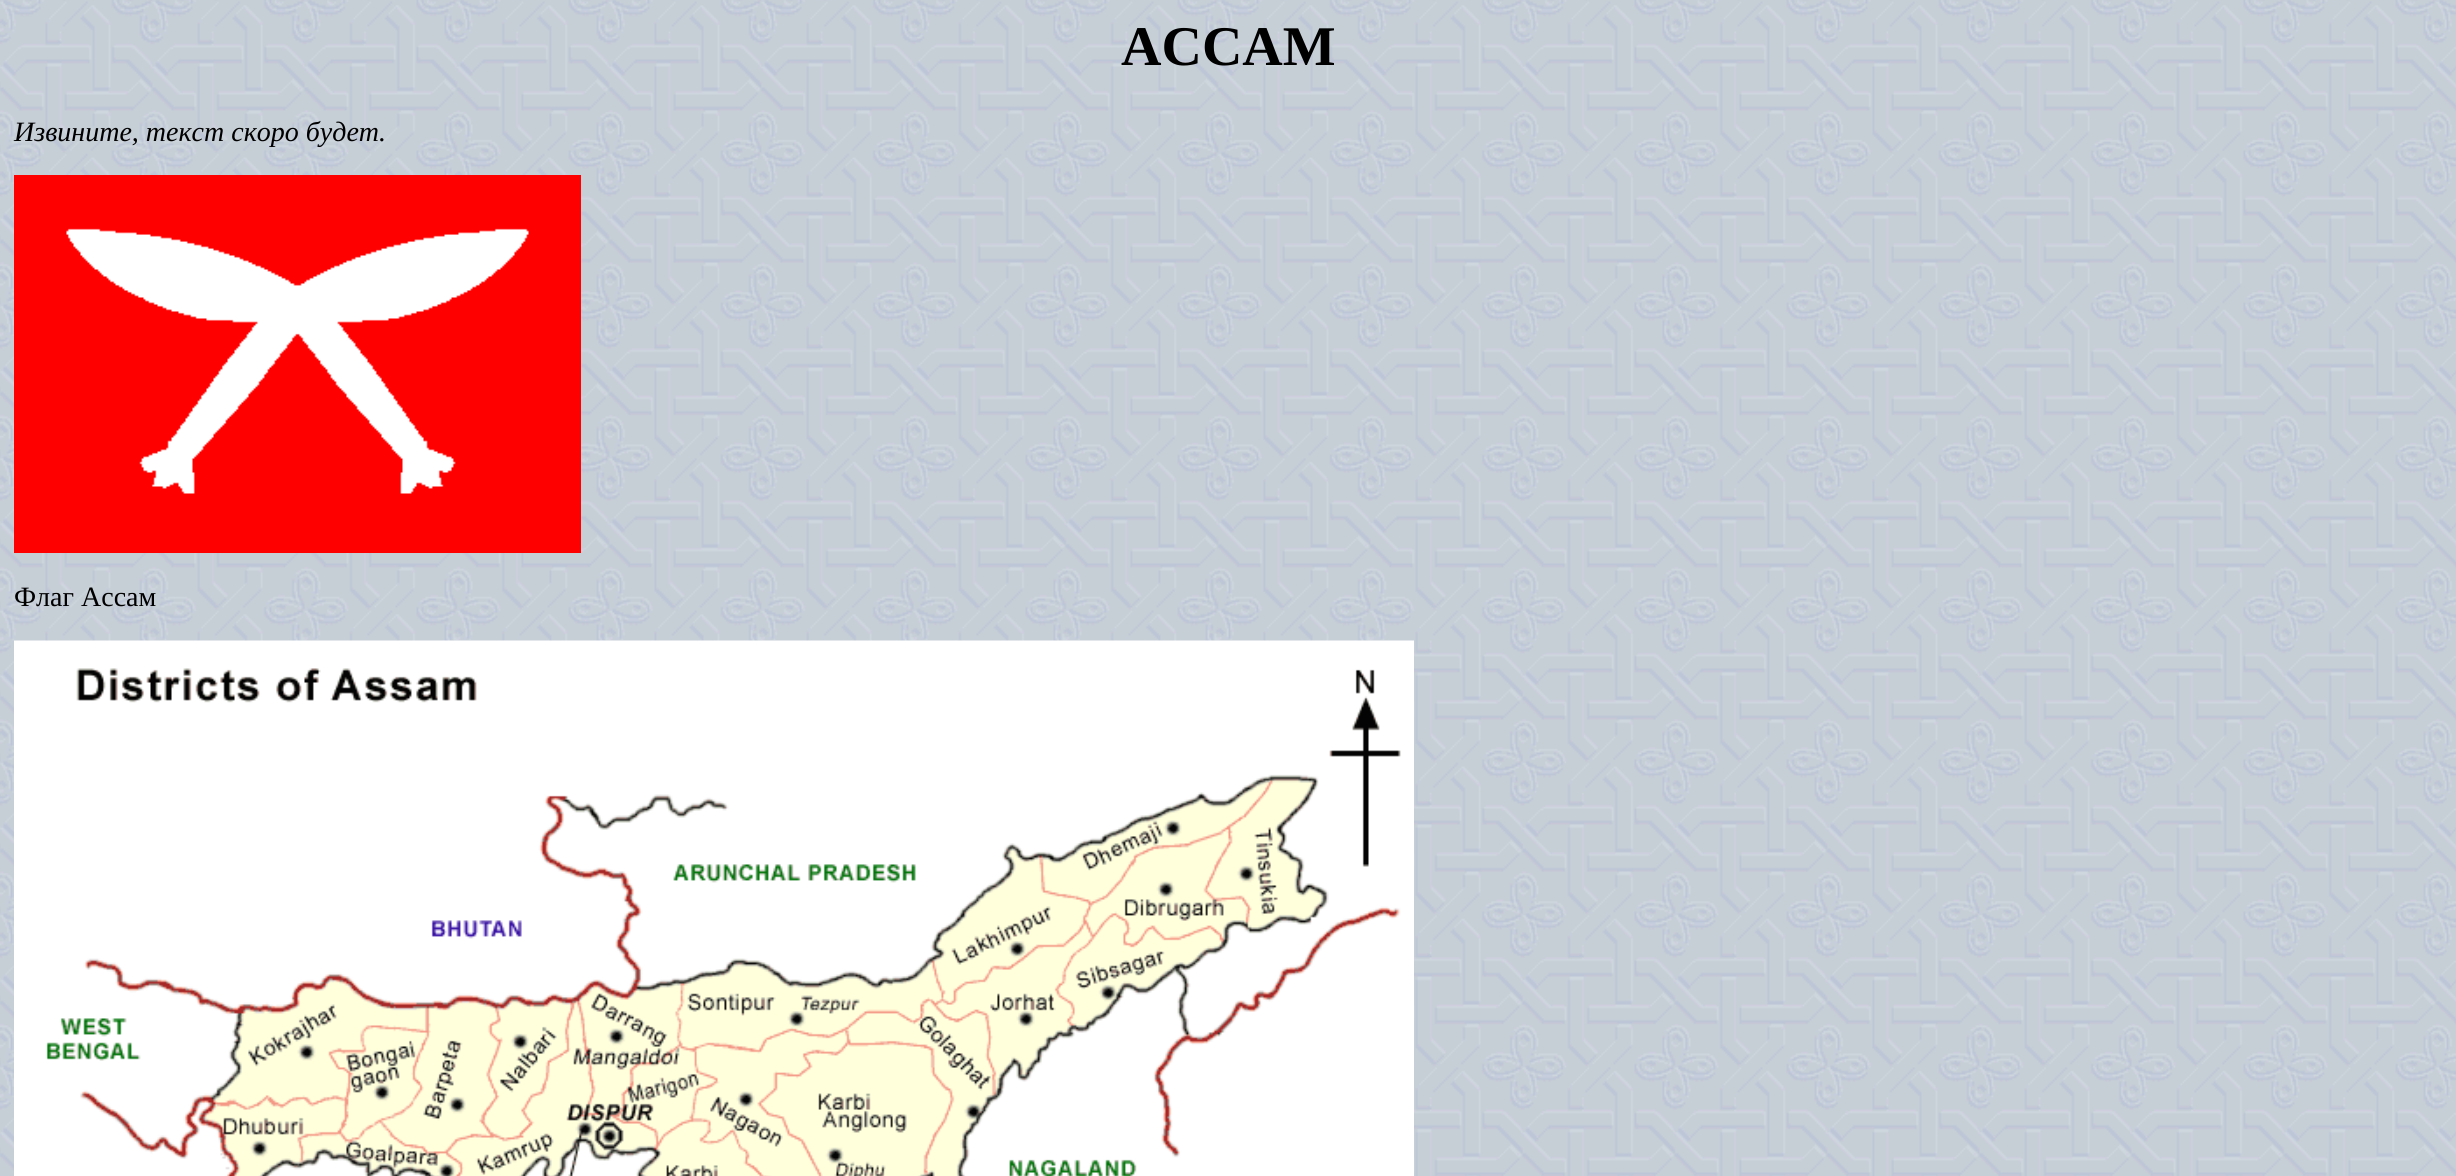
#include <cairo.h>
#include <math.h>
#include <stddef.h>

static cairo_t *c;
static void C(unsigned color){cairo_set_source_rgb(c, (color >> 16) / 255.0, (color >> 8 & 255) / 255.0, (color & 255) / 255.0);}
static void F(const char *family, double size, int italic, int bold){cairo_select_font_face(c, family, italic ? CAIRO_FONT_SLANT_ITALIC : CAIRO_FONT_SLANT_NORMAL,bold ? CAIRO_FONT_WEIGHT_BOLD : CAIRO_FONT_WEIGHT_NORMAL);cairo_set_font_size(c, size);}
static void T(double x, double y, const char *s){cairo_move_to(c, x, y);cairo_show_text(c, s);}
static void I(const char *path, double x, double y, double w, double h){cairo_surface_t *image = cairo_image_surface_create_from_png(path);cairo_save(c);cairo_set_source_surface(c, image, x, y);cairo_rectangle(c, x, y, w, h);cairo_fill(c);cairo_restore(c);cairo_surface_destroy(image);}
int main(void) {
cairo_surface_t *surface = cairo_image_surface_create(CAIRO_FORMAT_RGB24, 2456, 1176);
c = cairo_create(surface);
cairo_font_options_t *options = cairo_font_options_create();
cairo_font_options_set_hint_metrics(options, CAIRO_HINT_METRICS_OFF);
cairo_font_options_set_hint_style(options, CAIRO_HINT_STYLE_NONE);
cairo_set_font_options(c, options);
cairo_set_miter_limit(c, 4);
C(0xffffff);
cairo_paint(c);
I("1.png",0,0,2456,1176);
F("Liberation Serif",56,0,1);
C(0x000000);
T(1121,65,"АCCАМ");
F("Liberation Serif",28,1,0);
T(14,141,"Извините, текст скоро будет.");
I("2.png",14,175,567,378);
F("Liberation Serif",28,0,0);
T(14,606,"Флаг Ассам");
I("3.png",14,640,1400,536);
cairo_surface_write_to_png(surface, "o.png");
cairo_font_options_destroy(options);
cairo_destroy(c);
cairo_surface_destroy(surface);
return 0;
}
